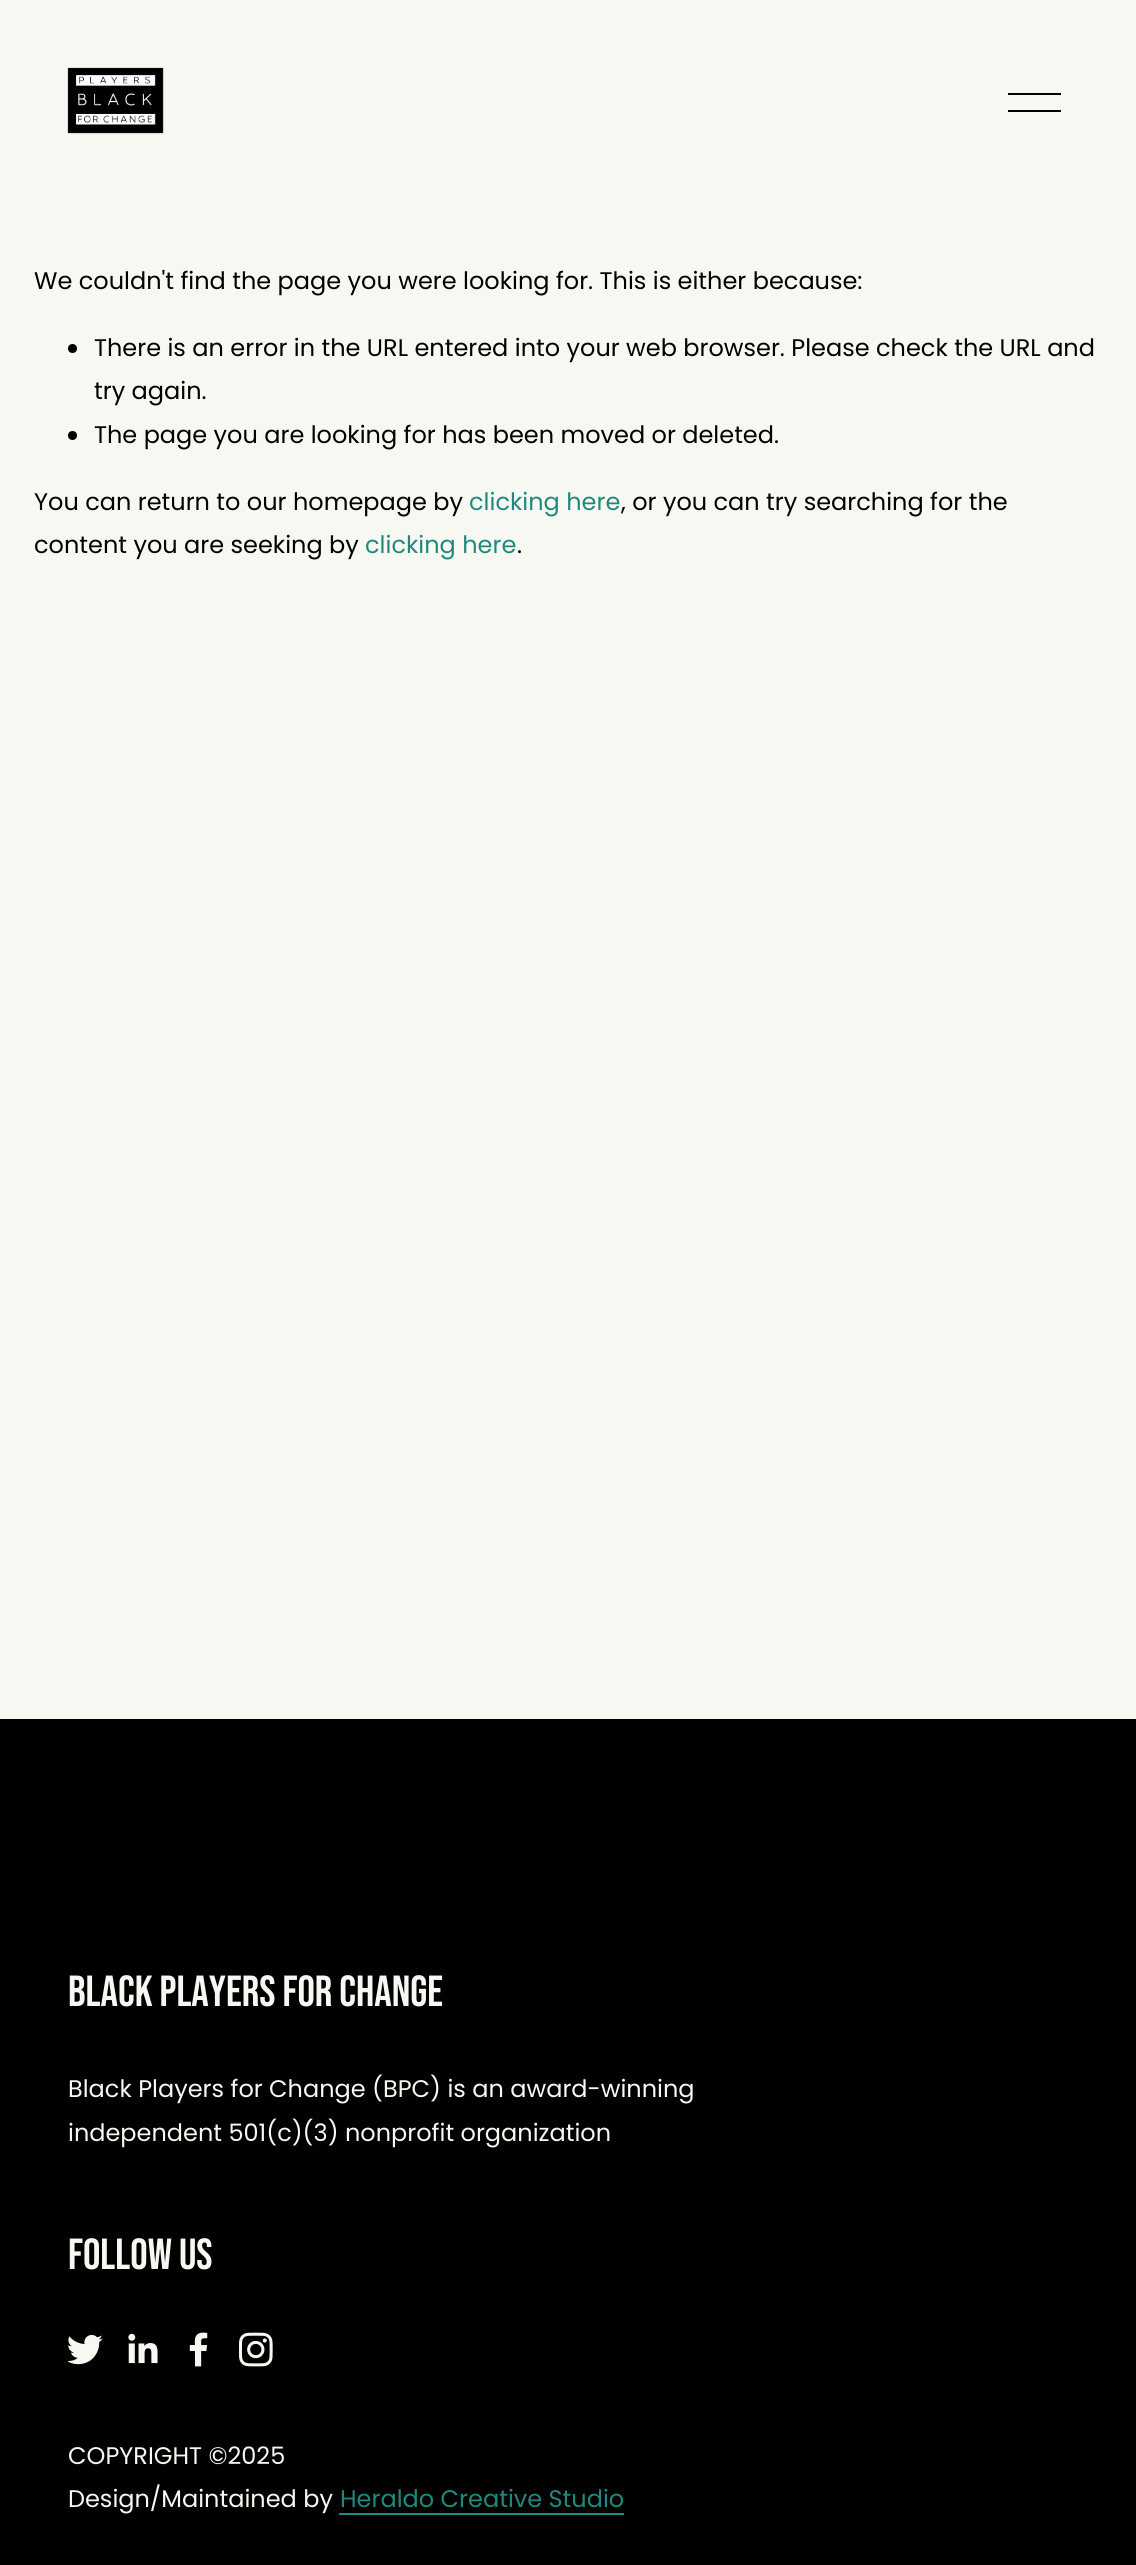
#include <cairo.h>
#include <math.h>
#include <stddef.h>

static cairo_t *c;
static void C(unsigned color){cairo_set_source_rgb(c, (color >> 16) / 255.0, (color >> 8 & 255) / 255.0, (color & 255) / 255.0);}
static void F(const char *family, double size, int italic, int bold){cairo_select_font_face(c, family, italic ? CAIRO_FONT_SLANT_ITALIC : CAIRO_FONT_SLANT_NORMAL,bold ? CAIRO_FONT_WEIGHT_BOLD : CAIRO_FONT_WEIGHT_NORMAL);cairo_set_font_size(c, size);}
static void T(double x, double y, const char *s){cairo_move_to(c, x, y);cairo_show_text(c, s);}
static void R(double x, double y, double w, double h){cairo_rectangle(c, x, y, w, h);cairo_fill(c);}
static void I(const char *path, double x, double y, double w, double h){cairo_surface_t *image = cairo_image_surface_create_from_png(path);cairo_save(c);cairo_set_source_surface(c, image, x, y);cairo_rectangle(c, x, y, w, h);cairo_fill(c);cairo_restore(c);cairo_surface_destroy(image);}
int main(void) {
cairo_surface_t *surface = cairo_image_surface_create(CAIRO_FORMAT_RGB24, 1136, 2565);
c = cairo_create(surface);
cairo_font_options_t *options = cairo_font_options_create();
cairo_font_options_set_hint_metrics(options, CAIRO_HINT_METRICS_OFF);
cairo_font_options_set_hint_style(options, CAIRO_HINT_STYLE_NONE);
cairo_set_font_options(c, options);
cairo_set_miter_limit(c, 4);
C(0xf7f8f1);
cairo_paint(c);
I("1.png",67,67,97,67);
C(0x000000);
R(1008,93,53,2);
R(1008,110,53,2);
F("Poppins",24,0,0);
T(34,289,"We couldn't find the page you were looking for. This is either because:");
cairo_new_path(c);
cairo_arc(c,72.5,348.5,4.5,0,2 * M_PI);
cairo_fill(c);
T(94,356,"There is an error in the URL entered into your web browser. Please check the URL and");
T(94,399,"try again.");
cairo_new_path(c);
cairo_arc(c,72.5,435.5,4.5,0,2 * M_PI);
cairo_fill(c);
T(94,443,"The page you are looking for has been moved or deleted.");
T(34,510,"You can return to our homepage by");
C(0x1f897f);
T(469,510,"clicking here");
C(0x000000);
T(621,510,", or you can try searching for the");
T(34,553,"content you are seeking by");
C(0x1f897f);
T(365,553,"clicking here");
C(0x000000);
T(517,553,".");
R(0,1719,1136,846);
F("Bebas Neue",43.5,0,0);
C(0xf7f8f1);
T(68,2006,"BLACK PLAYERS FOR CHANGE");
F("Poppins",24,0,0);
T(68,2097,"Black Players for Change (BPC) is an award-winning");
T(68,2141,"independent 501(c)(3) nonprofit organization");
F("Bebas Neue",43.5,0,0);
T(68,2269,"FOLLOW US");
I("2.png",68,2334,35,31);
I("3.png",128,2333,30,31);
I("4.png",189,2332,19,35);
I("5.png",239,2332,34,35);
F("Poppins",24,0,0);
T(68,2464,"COPYRIGHT ©2025");
T(68,2507,"Design/Maintained by");
C(0x1f897f);
T(340,2507,"Heraldo Creative Studio");
R(339,2513,285,2);
cairo_surface_write_to_png(surface, "o.png");
cairo_font_options_destroy(options);
cairo_destroy(c);
cairo_surface_destroy(surface);
return 0;
}
